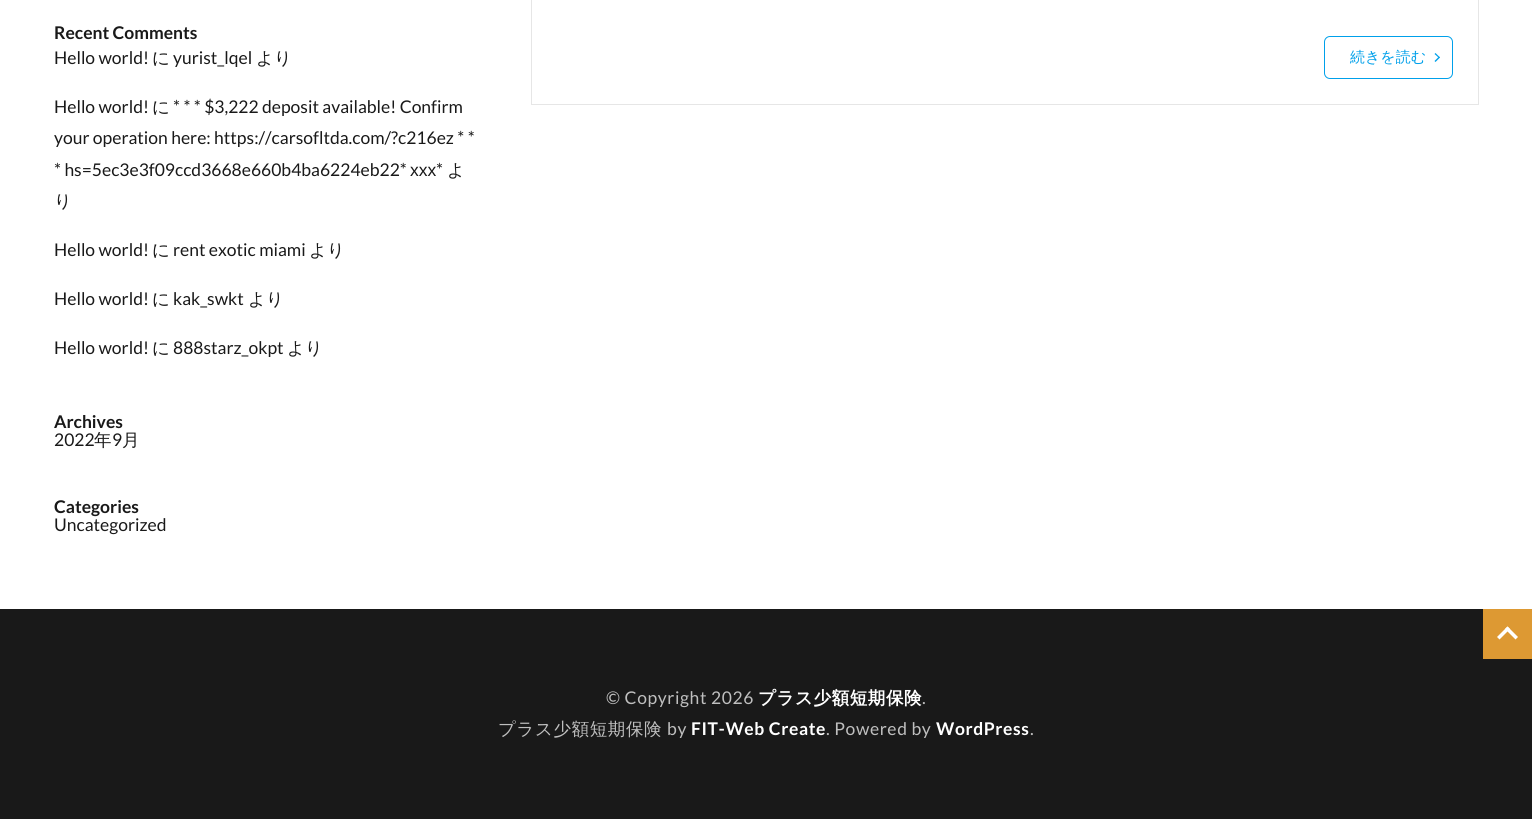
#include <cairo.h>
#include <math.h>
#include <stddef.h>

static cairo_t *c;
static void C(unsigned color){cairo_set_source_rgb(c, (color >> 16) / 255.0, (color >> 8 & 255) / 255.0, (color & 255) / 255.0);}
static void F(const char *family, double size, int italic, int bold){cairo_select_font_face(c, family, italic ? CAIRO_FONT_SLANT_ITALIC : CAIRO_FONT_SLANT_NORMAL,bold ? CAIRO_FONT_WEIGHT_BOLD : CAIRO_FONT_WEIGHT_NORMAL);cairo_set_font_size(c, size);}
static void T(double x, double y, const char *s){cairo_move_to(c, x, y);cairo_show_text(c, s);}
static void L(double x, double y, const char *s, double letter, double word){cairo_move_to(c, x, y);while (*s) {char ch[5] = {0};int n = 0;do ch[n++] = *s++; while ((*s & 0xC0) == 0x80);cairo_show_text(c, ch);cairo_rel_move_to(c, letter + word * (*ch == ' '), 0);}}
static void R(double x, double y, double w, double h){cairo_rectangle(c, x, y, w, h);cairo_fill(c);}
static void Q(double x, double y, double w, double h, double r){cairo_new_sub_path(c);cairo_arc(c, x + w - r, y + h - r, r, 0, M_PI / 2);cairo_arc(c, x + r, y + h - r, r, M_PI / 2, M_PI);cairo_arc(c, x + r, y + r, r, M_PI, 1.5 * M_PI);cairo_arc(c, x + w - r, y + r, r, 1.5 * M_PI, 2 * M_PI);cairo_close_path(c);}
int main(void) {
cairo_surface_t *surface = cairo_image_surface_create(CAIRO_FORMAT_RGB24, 1532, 819);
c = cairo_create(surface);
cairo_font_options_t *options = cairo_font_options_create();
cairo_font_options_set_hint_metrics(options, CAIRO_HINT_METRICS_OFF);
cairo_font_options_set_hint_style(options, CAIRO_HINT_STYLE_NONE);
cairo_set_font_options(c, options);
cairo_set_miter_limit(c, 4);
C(0xffffff);
cairo_paint(c);
F("Lato",17.5,0,1);
C(0x191919);
T(54,39,"Recent Comments");
F("Lato",17.5,0,0);
T(54,64,"Hello world!");
F("WenQuanYi Zen Hei Medium",17.5,0,0);
T(152,64,"に");
F("Lato",17.5,0,0);
T(173,64,"yurist_lqel");
F("WenQuanYi Zen Hei Medium",17.5,0,0);
T(256,64,"より");
F("Lato",17.5,0,0);
T(54,113,"Hello world!");
F("WenQuanYi Zen Hei Medium",17.5,0,0);
T(152,113,"に");
F("Lato",17.5,0,0);
T(173,113,"* * * $3,222 deposit available! Confirm");
T(54,144,"your operation here: https://carsofltda.com/?c216ez * *");
T(54,176,"* hs=5ec3e3f09ccd3668e660b4ba6224eb22*");
F("Liberation Sans",17.5,0,0);
T(410,176,"ххх");
F("Lato",17.5,0,0);
T(436,176,"*");
F("WenQuanYi Zen Hei Medium",17.5,0,0);
T(447,176,"よ");
T(54,207,"り");
F("Lato",17.5,0,0);
T(54,256,"Hello world!");
F("WenQuanYi Zen Hei Medium",17.5,0,0);
T(152,256,"に");
F("Lato",17.5,0,0);
T(173,256,"rent exotic miami");
F("WenQuanYi Zen Hei Medium",17.5,0,0);
T(309,256,"より");
F("Lato",17.5,0,0);
T(54,305,"Hello world!");
F("WenQuanYi Zen Hei Medium",17.5,0,0);
T(152,305,"に");
F("Lato",17.5,0,0);
T(173,305,"kak_swkt");
F("WenQuanYi Zen Hei Medium",17.5,0,0);
T(248,305,"より");
F("Lato",17.5,0,0);
T(54,354,"Hello world!");
F("WenQuanYi Zen Hei Medium",17.5,0,0);
T(152,354,"に");
F("Lato",17.5,0,0);
T(173,354,"888starz_okpt");
F("WenQuanYi Zen Hei Medium",17.5,0,0);
T(287,354,"より");
F("Lato",17.5,0,1);
T(54,428,"Archives");
F("Lato",17.5,0,0);
T(54,446,"2022");
F("WenQuanYi Zen Hei Medium",17.5,0,0);
T(94,446,"年");
F("Lato",17.5,0,0);
T(112,446,"9");
F("WenQuanYi Zen Hei Medium",17.5,0,0);
T(122,446,"月");
F("Lato",17.5,0,1);
T(54,513,"Categories");
F("Lato",17.5,0,0);
T(54,531,"Uncategorized");
cairo_rectangle(c,531.5,-.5,947,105);
C(0xe6e6e6);
cairo_set_line_width(c,1);
cairo_stroke(c);
Q(1324.5,36.5,128,42,5.5);
C(0x00a0ea);
cairo_stroke(c);
F("WenQuanYi Zen Hei Medium",15,0,0);
T(1350,62,"続きを読む");
cairo_new_path(c);
cairo_move_to(c,1435.5,53);
cairo_line_to(c,1440,57.5);
cairo_line_to(c,1439,58);
cairo_line_to(c,1434.5,54);
cairo_close_path(c);
cairo_fill(c);
cairo_new_path(c);
cairo_move_to(c,1439,56.5);
cairo_line_to(c,1440,57.5);
cairo_line_to(c,1435.5,62);
cairo_line_to(c,1434.5,61);
cairo_close_path(c);
cairo_fill(c);
C(0x191919);
R(0,609,1532,210);
C(0xdd9933);
R(1483,609,49,50);
C(0xffffff);
cairo_new_path(c);
cairo_move_to(c,1497,637);
cairo_line_to(c,1507.5,626.5);
cairo_line_to(c,1510,629);
cairo_line_to(c,1499.5,639.5);
cairo_close_path(c);
cairo_fill(c);
cairo_new_path(c);
cairo_move_to(c,1505,629);
cairo_line_to(c,1507.5,626.5);
cairo_line_to(c,1518,637);
cairo_line_to(c,1515.5,639.5);
cairo_close_path(c);
cairo_fill(c);
F("Lato",17.5,0,0);
C(0xbfbfbf);
L(606,704,"© Copyright 2026",.6,0);
F("WenQuanYi Zen Hei",17.5,0,1);
C(0xffffff);
L(758,704,"プラス少額短期保険",.6,0);
F("Lato",17.5,0,0);
C(0xbfbfbf);
L(922,704,".",.6,0);
F("WenQuanYi Zen Hei Medium",17.5,0,0);
L(498,735,"プラス少額短期保険",.6,0);
F("Lato",17.5,0,0);
L(667,735,"by",.6,0);
F("Lato",17.5,0,1);
C(0xffffff);
L(691,735,"FIT-Web Create",.6,0);
F("Lato",17.5,0,0);
C(0xbfbfbf);
L(826,735,". Powered by",.6,0);
F("Lato",17.5,0,1);
C(0xffffff);
L(936,735,"WordPress",.6,0);
F("Lato",17.5,0,0);
C(0xbfbfbf);
L(1030,735,".",.6,0);
cairo_surface_write_to_png(surface, "o.png");
cairo_font_options_destroy(options);
cairo_destroy(c);
cairo_surface_destroy(surface);
return 0;
}
